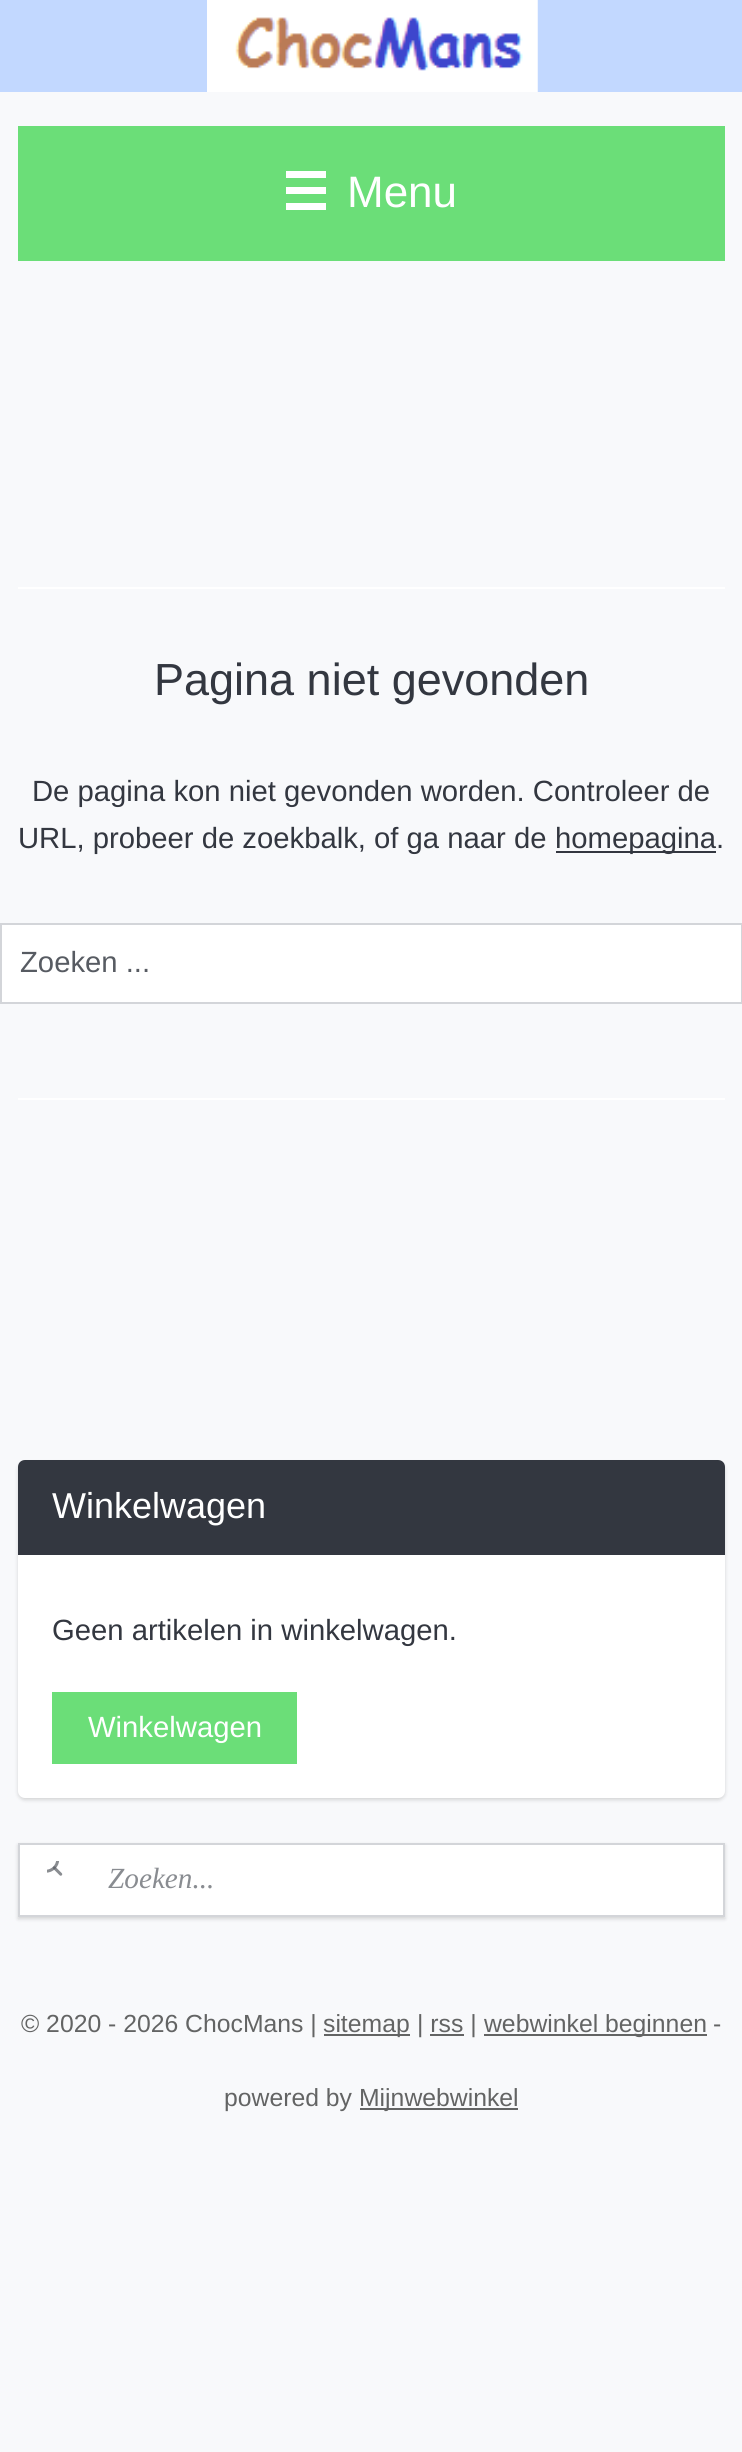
#include <cairo.h>
#include <math.h>
#include <stddef.h>

static cairo_t *c;
static void C(unsigned color){cairo_set_source_rgb(c, (color >> 16) / 255.0, (color >> 8 & 255) / 255.0, (color & 255) / 255.0);}
static void F(const char *family, double size, int italic, int bold){cairo_select_font_face(c, family, italic ? CAIRO_FONT_SLANT_ITALIC : CAIRO_FONT_SLANT_NORMAL,bold ? CAIRO_FONT_WEIGHT_BOLD : CAIRO_FONT_WEIGHT_NORMAL);cairo_set_font_size(c, size);}
static void T(double x, double y, const char *s){cairo_move_to(c, x, y);cairo_show_text(c, s);}
static void R(double x, double y, double w, double h){cairo_rectangle(c, x, y, w, h);cairo_fill(c);}
static void Q(double x, double y, double w, double h, double r){cairo_new_sub_path(c);cairo_arc(c, x + w - r, y + h - r, r, 0, M_PI / 2);cairo_arc(c, x + r, y + h - r, r, M_PI / 2, M_PI);cairo_arc(c, x + r, y + r, r, M_PI, 1.5 * M_PI);cairo_arc(c, x + w - r, y + r, r, 1.5 * M_PI, 2 * M_PI);cairo_close_path(c);}
static void S(double x, double y, double w, double h, double r, double blur, double alpha){cairo_push_group_with_content(c, CAIRO_CONTENT_ALPHA);cairo_set_operator(c, CAIRO_OPERATOR_SOURCE);for (int i = 15; i >= -15 && fmin(w, h) + blur * i / 3 > 0; i -= 2) {double e = blur * i / 6;cairo_set_source_rgba(c, 0, 0, 0, alpha * erfc((i - 1) / 8.5) / 2);Q(x - e, y - e, w + 2 * e, h + 2 * e, fmax(0, fmin(r + e + blur * .6, fmin(w, h) / 2 + e)));cairo_fill(c);}cairo_pattern_t *soft = cairo_pop_group(c);cairo_mask(c, soft);cairo_pattern_destroy(soft);}
static void I(const char *path, double x, double y, double w, double h){cairo_surface_t *image = cairo_image_surface_create_from_png(path);cairo_save(c);cairo_set_source_surface(c, image, x, y);cairo_rectangle(c, x, y, w, h);cairo_fill(c);cairo_restore(c);cairo_surface_destroy(image);}
int main(void) {
cairo_surface_t *surface = cairo_image_surface_create(CAIRO_FORMAT_RGB24, 742, 2452);
c = cairo_create(surface);
cairo_font_options_t *options = cairo_font_options_create();
cairo_font_options_set_hint_metrics(options, CAIRO_HINT_METRICS_OFF);
cairo_font_options_set_hint_style(options, CAIRO_HINT_STYLE_NONE);
cairo_set_font_options(c, options);
cairo_set_miter_limit(c, 4);
C(0xf8f9fb);
cairo_paint(c);
C(0xc2d8ff);
R(0,0,742,92);
I("1.png",207,0,331,92);
C(0x6bde78);
R(18,126,707,135);
C(0xffffff);
R(286,187,40,7);
R(286,171,40,7);
R(286,203,40,7);
F("Liberation Sans",44,0,0);
T(347,207,"Menu");
R(18,587,707,2);
R(18,1098,707,2);
F("Liberation Sans",45,0,0);
C(0x333740);
T(154,695,"Pagina niet gevonden");
F("Liberation Sans",29.25,0,0);
T(32,801,"De pagina kon niet gevonden worden. Controleer de");
T(18,848,"URL, probeer de zoekbalk, of ga naar de");
R(556,851,160,2);
T(555,848,"homepagina.");
C(0xffffff);
cairo_rectangle(c,1,924,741,79);
cairo_fill_preserve(c);
C(0xd3d5d9);
cairo_stroke(c);
C(0x575b62);
T(20,972,"Zoeken ...");
C(0x000000);
S(18,1463,707,337,7,2,.15);
C(0xffffff);
Q(18,1460,707,338,7);
cairo_fill(c);
C(0x333740);
cairo_new_path(c);
cairo_move_to(c,25,1460);
cairo_line_to(c,718,1460);
cairo_curve_to(c,722,1460,725,1463,725,1467);
cairo_line_to(c,725,1555);
cairo_line_to(c,18,1555);
cairo_line_to(c,18,1467);
cairo_curve_to(c,18,1463,21,1460,25,1460);
cairo_close_path(c);
cairo_fill(c);
F("Liberation Sans",36,0,0);
C(0xffffff);
T(52,1518,"Winkelwagen");
F("Liberation Sans",29.25,0,0);
C(0x333740);
T(52,1640,"Geen artikelen in winkelwagen.");
C(0x6bde78);
R(52,1692,245,72);
C(0xffffff);
T(88,1737,"Winkelwagen");
C(0x000000);
S(18,1845,707,74,0,2,.15);
C(0xffffff);
cairo_rectangle(c,19,1844,705,72);
cairo_fill_preserve(c);
C(0xd3d5d9);
cairo_stroke(c);
I("2.png",47,1861,16,15);
F("Liberation Serif",29.25,1,0);
C(0x898c91);
T(108,1888,"Zoeken...");
F("Liberation Sans",24.75,0,0);
C(0x636464);
T(21,2032,"© 2020 - 2026 ChocMans |");
R(324,2034,86,2);
T(323,2032,"sitemap");
T(417,2032,"| rss |");
R(484,2034,223,2);
T(484,2032,"webwinkel beginnen");
T(713,2032,"-");
R(430,2034,34,2);
T(224,2106,"powered by");
R(360,2108,158,2);
T(359,2106,"Mijnwebwinkel");
cairo_surface_write_to_png(surface, "o.png");
cairo_font_options_destroy(options);
cairo_destroy(c);
cairo_surface_destroy(surface);
return 0;
}
